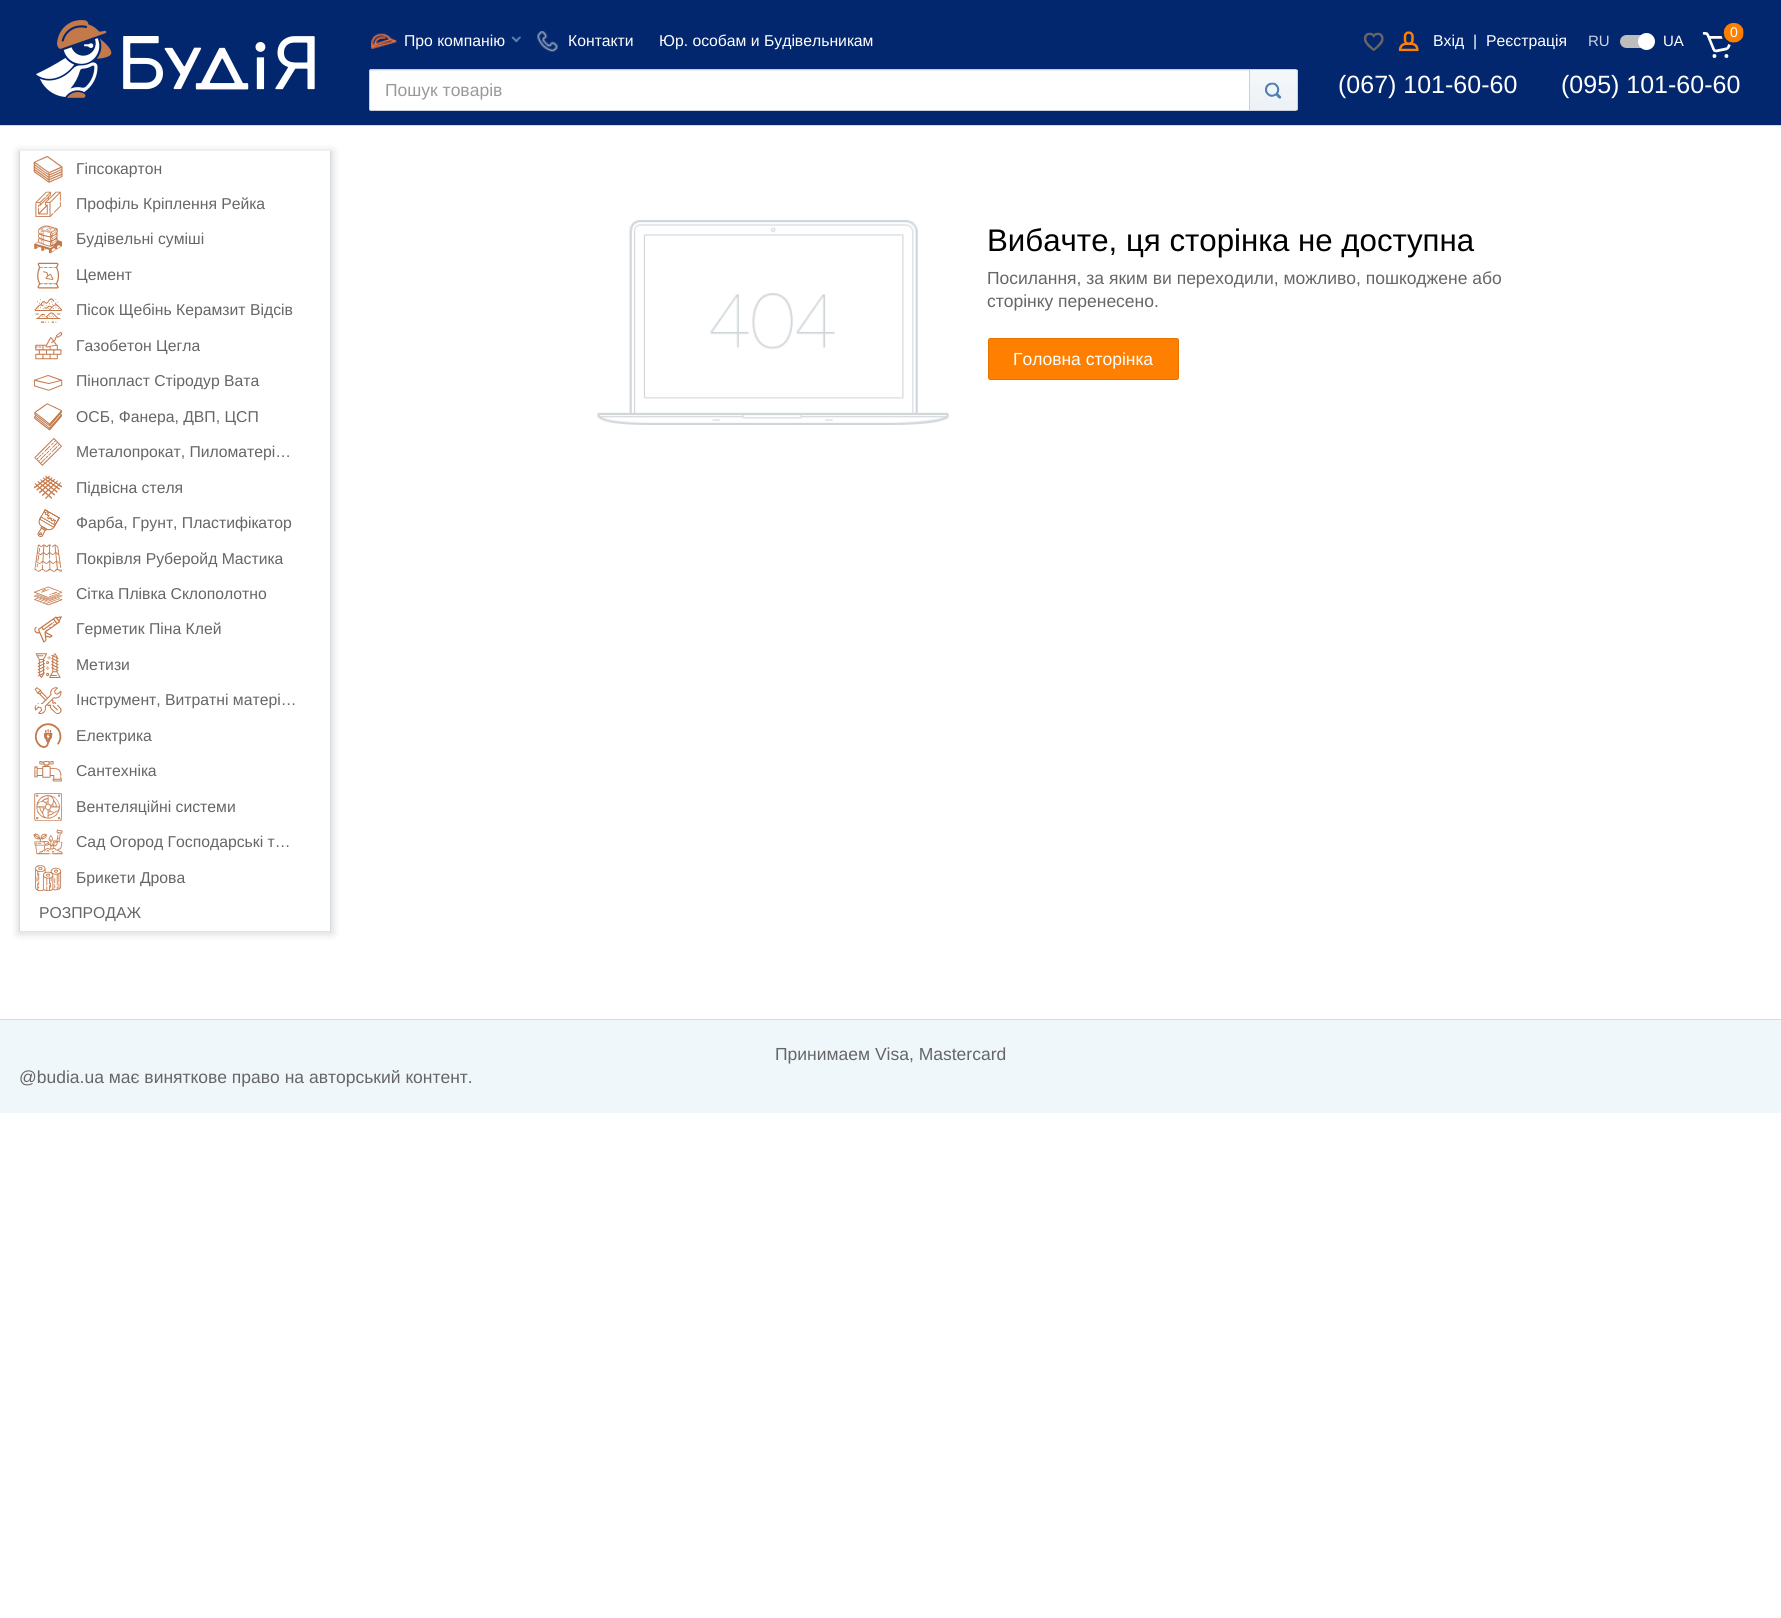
#include <cairo.h>
#include <math.h>
#include <stddef.h>

static cairo_t *c;
static void C(unsigned color){cairo_set_source_rgb(c, (color >> 16) / 255.0, (color >> 8 & 255) / 255.0, (color & 255) / 255.0);}
static void F(const char *family, double size, int italic, int bold){cairo_select_font_face(c, family, italic ? CAIRO_FONT_SLANT_ITALIC : CAIRO_FONT_SLANT_NORMAL,bold ? CAIRO_FONT_WEIGHT_BOLD : CAIRO_FONT_WEIGHT_NORMAL);cairo_set_font_size(c, size);}
static void T(double x, double y, const char *s){cairo_move_to(c, x, y);cairo_show_text(c, s);}
static void R(double x, double y, double w, double h){cairo_rectangle(c, x, y, w, h);cairo_fill(c);}
static void Q(double x, double y, double w, double h, double r){cairo_new_sub_path(c);cairo_arc(c, x + w - r, y + h - r, r, 0, M_PI / 2);cairo_arc(c, x + r, y + h - r, r, M_PI / 2, M_PI);cairo_arc(c, x + r, y + r, r, M_PI, 1.5 * M_PI);cairo_arc(c, x + w - r, y + r, r, 1.5 * M_PI, 2 * M_PI);cairo_close_path(c);}
static void S(double x, double y, double w, double h, double r, double blur, double alpha){cairo_push_group_with_content(c, CAIRO_CONTENT_ALPHA);cairo_set_operator(c, CAIRO_OPERATOR_SOURCE);for (int i = 15; i >= -15 && fmin(w, h) + blur * i / 3 > 0; i -= 2) {double e = blur * i / 6;cairo_set_source_rgba(c, 0, 0, 0, alpha * erfc((i - 1) / 8.5) / 2);Q(x - e, y - e, w + 2 * e, h + 2 * e, fmax(0, fmin(r + e + blur * .6, fmin(w, h) / 2 + e)));cairo_fill(c);}cairo_pattern_t *soft = cairo_pop_group(c);cairo_mask(c, soft);cairo_pattern_destroy(soft);}
static void I(const char *path, double x, double y, double w, double h){cairo_surface_t *image = cairo_image_surface_create_from_png(path);cairo_save(c);cairo_set_source_surface(c, image, x, y);cairo_rectangle(c, x, y, w, h);cairo_fill(c);cairo_restore(c);cairo_surface_destroy(image);}
int main(void) {
cairo_surface_t *surface = cairo_image_surface_create(CAIRO_FORMAT_RGB24, 1781, 1618);
c = cairo_create(surface);
cairo_font_options_t *options = cairo_font_options_create();
cairo_font_options_set_hint_metrics(options, CAIRO_HINT_METRICS_OFF);
cairo_font_options_set_hint_style(options, CAIRO_HINT_STYLE_NONE);
cairo_set_font_options(c, options);
cairo_set_miter_limit(c, 4);
cairo_pattern_t *gradient;
C(0xffffff);
cairo_paint(c);
C(0xd2dbe1);
R(0,125,1781,1);
C(0x03276f);
R(0,0,1781,125);
I("1.png",36,20,279,78);
I("2.png",371,33,26,16);
F("Liberation Sans",15.75,0,0);
C(0xffffff);
T(404,46,"Про компанію");
I("3.png",511,36,10,7);
I("4.png",537,31,21,21);
T(568,46,"Контакти");
T(659,46,"Юр. особам и Будівельникам");
I("5.png",1702,22,42,36);
F("Liberation Sans",14,0,0);
T(1730,37,"0");
I("6.png",1363,32,21,19);
I("7.png",1398,31,21,21);
F("Liberation Sans",15.75,0,0);
T(1433,46,"Вхід");
T(1473,46,"|");
T(1486,46,"Реєстрація");
F("Liberation Sans",15,0,0);
C(0xcdd4e2);
T(1588,46,"RU");
C(0xbdbdbd);
Q(1620,35,33,13,6.5);
cairo_fill(c);
C(0xffffff);
cairo_arc(c,1646.5,41.5,7,0,2 * M_PI);
cairo_fill_preserve(c);
cairo_set_line_width(c,3);
cairo_stroke(c);
T(1663,46,"UA");
cairo_new_path(c);
cairo_move_to(c,371.5,69);
cairo_line_to(c,1250,69);
cairo_line_to(c,1250,111);
cairo_line_to(c,371.5,111);
cairo_curve_to(c,370,111,369,110,369,108.5);
cairo_line_to(c,369,71.5);
cairo_curve_to(c,369,70,370,69,371.5,69);
cairo_close_path(c);
cairo_fill(c);
C(0xececec);
cairo_new_path(c);
cairo_move_to(c,371,71);
cairo_line_to(c,1249,71);
cairo_line_to(c,1249,70);
cairo_line_to(c,371,70);
cairo_curve_to(c,370,70,370,71,370,72);
cairo_close_path(c);
cairo_fill(c);
cairo_new_path(c);
cairo_move_to(c,371.5,69.5);
cairo_line_to(c,1249.5,69.5);
cairo_line_to(c,1249.5,110.5);
cairo_line_to(c,371.5,110.5);
cairo_curve_to(c,370.5,110.5,369.5,109.5,369.5,108.5);
cairo_line_to(c,369.5,71.5);
cairo_curve_to(c,369.5,70.5,370.5,69.5,371.5,69.5);
cairo_close_path(c);
C(0xc8cfd9);
cairo_set_line_width(c,1);
cairo_stroke(c);
F("Liberation Sans",17.5,0,0);
C(0x999999);
T(385,96,"Пошук товарів");
gradient = cairo_pattern_create_linear(1273,70,1273,110);
cairo_pattern_add_color_stop_rgba(gradient,0,0.961,0.973,0.984,1);
cairo_pattern_add_color_stop_rgba(gradient,1,0.925,0.945,0.965,1);
cairo_set_source(c,gradient);
cairo_pattern_destroy(gradient);
R(1250,70,48,40);
cairo_new_path(c);
cairo_move_to(c,1249.5,69.5);
cairo_line_to(c,1295.5,69.5);
cairo_curve_to(c,1296.5,69.5,1297.5,70.5,1297.5,71.5);
cairo_line_to(c,1297.5,108.5);
cairo_curve_to(c,1297.5,109.5,1296.5,110.5,1295.5,110.5);
cairo_line_to(c,1249.5,110.5);
cairo_close_path(c);
C(0xc8cfd9);
cairo_stroke(c);
I("8.png",1265,82,17,17);
F("Liberation Sans",25,0,0);
C(0xffffff);
T(1338,93,"(067) 101-60-60");
T(1561,93,"(095) 101-60-60");
cairo_save(c);
cairo_set_fill_rule(c,CAIRO_FILL_RULE_EVEN_ODD);
cairo_new_path(c);
cairo_move_to(c,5,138);
cairo_line_to(c,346,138);
cairo_line_to(c,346,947);
cairo_line_to(c,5,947);
cairo_close_path(c);
cairo_move_to(c,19,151);
cairo_line_to(c,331,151);
cairo_line_to(c,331,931);
cairo_line_to(c,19,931);
cairo_close_path(c);
cairo_clip(c);
C(0x000000);
S(18,151,315,783,0,4,.15);
cairo_restore(c);
C(0xd2dbe1);
R(330,151,1,780);
R(19,151,1,780);
C(0xffffff);
R(20,151,310,1);
I("9.png",33,156,30,27);
F("Liberation Sans",15.75,0,0);
C(0x666666);
T(76,174,"Гіпсокартон");
I("10.png",35,191,26,26);
T(76,209,"Профіль Кріплення Рейка");
I("11.png",34,225,29,29);
T(76,244,"Будівельні суміші");
I("12.png",37,262,23,27);
T(76,280,"Цемент");
I("13.png",34,298,28,25);
T(76,315,"Пісок Щебінь Керамзит Відсів");
I("14.png",35,332,28,28);
T(76,351,"Газобетон Цегла");
I("15.png",33,375,30,16);
T(76,386,"Пінопласт Стіродур Вата");
I("16.png",34,403,29,28);
T(76,422,"ОСБ, Фанера, ДВП, ЦСП");
I("17.png",34,438,28,28);
T(76,457,"Металопрокат, Пиломатері…");
I("18.png",34,475,28,25);
T(76,493,"Підвісна стеля");
I("19.png",37,509,23,28);
T(76,528,"Фарба, Грунт, Пластифікатор");
I("20.png",34,544,28,28);
T(76,564,"Покрівля Руберойд Мастика");
I("21.png",33,586,30,20);
T(76,599,"Сітка Плівка Склополотно");
I("22.png",34,616,28,27);
T(76,634,"Герметик Піна Клей");
I("23.png",35,653,26,25);
T(76,670,"Метизи");
I("24.png",34,687,28,27);
T(76,705,"Інструмент, Витратні матері…");
I("25.png",34,723,28,25);
T(76,741,"Електрика");
I("26.png",34,761,28,21);
T(76,776,"Сантехніка");
I("27.png",34,793,28,28);
T(76,812,"Вентеляційні системи");
I("28.png",33,829,30,26);
T(76,847,"Сад Огород Господарські т…");
I("29.png",35,865,27,26);
T(76,883,"Брикети Дрова");
T(39,918,"РОЗПРОДАЖ");
I("30.png",597,220,352,205);
F("Liberation Sans",31.25,0,0);
C(0x000000);
T(987,251,"Вибачте, ця сторінка не доступна");
F("Liberation Sans",17.5,0,0);
C(0x666666);
T(987,284,"Посилання, за яким ви переходили, можливо, пошкоджене або");
T(987,307,"сторінку перенесено.");
C(0xff8001);
Q(988.5,338.5,190,41,2);
cairo_fill_preserve(c);
C(0xe77300);
cairo_stroke(c);
C(0xffffff);
T(1013,365,"Головна сторінка");
C(0xf0f7fa);
R(0,1020,1781,93);
C(0xd2dbe1);
R(0,1019,1781,1);
C(0x666666);
T(775,1060,"Принимаем Visa, Mastercard");
T(19,1083,"@budia.ua має виняткове право на авторський контент.");
cairo_surface_write_to_png(surface, "o.png");
cairo_font_options_destroy(options);
cairo_destroy(c);
cairo_surface_destroy(surface);
return 0;
}
